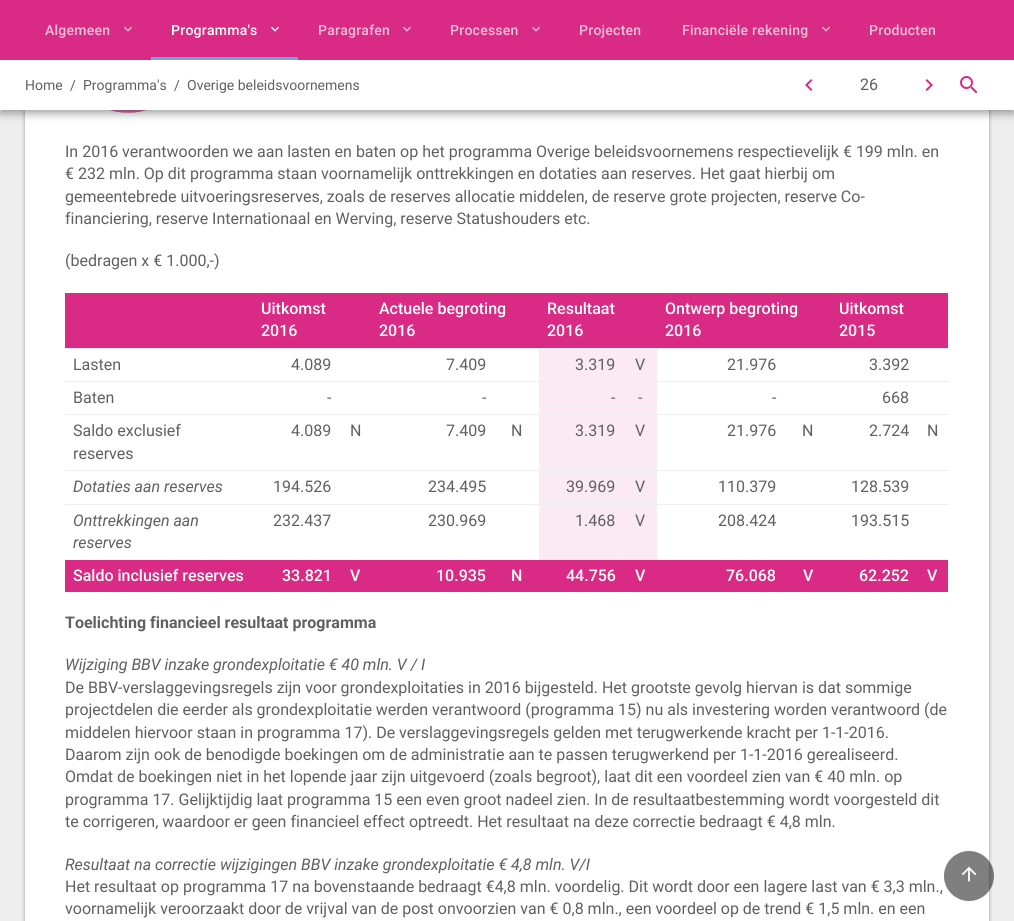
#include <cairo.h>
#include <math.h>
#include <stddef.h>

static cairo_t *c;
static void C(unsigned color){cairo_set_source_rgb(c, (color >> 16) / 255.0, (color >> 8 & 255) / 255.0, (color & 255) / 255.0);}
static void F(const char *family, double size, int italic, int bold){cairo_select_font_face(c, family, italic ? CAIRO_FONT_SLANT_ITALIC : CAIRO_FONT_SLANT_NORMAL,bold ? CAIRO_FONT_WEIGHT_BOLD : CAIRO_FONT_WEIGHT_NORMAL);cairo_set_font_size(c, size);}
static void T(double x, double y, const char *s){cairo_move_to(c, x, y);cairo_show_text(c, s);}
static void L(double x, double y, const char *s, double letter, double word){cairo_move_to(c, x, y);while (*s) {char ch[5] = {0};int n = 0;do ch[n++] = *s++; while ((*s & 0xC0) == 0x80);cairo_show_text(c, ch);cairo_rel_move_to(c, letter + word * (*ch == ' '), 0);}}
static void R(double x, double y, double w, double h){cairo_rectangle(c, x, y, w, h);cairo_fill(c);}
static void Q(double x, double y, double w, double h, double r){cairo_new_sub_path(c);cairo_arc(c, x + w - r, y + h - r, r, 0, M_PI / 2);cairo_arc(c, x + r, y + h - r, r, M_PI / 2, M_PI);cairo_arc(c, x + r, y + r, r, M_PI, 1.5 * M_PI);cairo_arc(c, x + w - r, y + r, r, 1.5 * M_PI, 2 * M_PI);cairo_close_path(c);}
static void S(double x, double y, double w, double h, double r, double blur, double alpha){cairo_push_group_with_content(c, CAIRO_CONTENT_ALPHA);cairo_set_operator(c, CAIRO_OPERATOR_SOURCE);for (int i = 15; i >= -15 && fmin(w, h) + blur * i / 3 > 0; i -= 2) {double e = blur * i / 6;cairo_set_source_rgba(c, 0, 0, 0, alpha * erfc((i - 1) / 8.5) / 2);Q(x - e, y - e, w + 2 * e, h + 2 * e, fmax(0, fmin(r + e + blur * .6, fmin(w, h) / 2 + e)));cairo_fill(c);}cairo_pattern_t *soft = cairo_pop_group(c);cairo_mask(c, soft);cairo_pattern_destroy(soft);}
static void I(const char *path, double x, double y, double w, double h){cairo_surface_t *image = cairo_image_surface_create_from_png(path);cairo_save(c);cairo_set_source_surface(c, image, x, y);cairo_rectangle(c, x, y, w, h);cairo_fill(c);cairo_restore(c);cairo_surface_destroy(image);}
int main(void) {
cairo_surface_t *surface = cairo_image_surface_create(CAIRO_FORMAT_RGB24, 1014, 921);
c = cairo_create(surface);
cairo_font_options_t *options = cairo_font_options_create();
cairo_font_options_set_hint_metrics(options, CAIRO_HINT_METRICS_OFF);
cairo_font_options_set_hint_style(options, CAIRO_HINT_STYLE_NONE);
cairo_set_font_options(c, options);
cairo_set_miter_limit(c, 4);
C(0xeeeeee);
cairo_paint(c);
C(0x000000);
S(25,-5,964,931,0,1.5,.26);
S(25,-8,964,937,0,2.5,.16);
C(0xffffff);
R(25,110,964,811);
I("6.png",66,110,292,3);
C(0x000000);
S(0,-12,1014,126,0,4,.2);
S(0,-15,1014,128,0,5,.19);
C(0xd92b85);
R(0,0,1014,60);
F("Roboto Medium",14,0,0);
C(0xf4bfda);
L(45,35,"Algemeen",.25,0);
I("1.png",124,26,8,6);
C(0x69a8de);
R(151,57,147,3);
C(0xffffff);
L(171,35,"Programma's",.25,0);
I("2.png",271,26,8,6);
C(0xf4bfda);
L(318,35,"Paragrafen",.25,0);
I("1.png",403,26,8,6);
L(450,35,"Processen",.25,0);
I("1.png",532,26,8,6);
L(579,35,"Projecten",.25,0);
L(682,35,"Financiële rekening",.25,0);
I("1.png",822,26,8,6);
L(869,35,"Producten",.25,0);
C(0xffffff);
R(0,60,1014,50);
F("Roboto",14,0,0);
C(0x606060);
T(25,90,"Home");
T(70,90,"/");
T(83,90,"Programma's");
T(174,90,"/");
T(187,90,"Overige beleidsvoornemens");
I("3.png",805,79,8,12);
F("Roboto",16,0,0);
T(860,90,"26");
I("4.png",925,79,8,12);
I("5.png",960,76,18,18);
T(65,157,"In 2016 verantwoorden we aan lasten en baten op het programma Overige beleidsvoornemens respectievelijk € 199 mln. en");
T(65,179,"€ 232 mln. Op dit programma staan voornamelijk onttrekkingen en dotaties aan reserves. Het gaat hierbij om");
T(65,202,"gemeentebrede uitvoeringsreserves, zoals de reserves allocatie middelen, de reserve grote projecten, reserve Co-");
T(65,224,"financiering, reserve Internationaal en Werving, reserve Statushouders etc.");
T(65,266,"(bedragen x € 1.000,-)");
C(0xd92b85);
R(65,293,883,55);
F("Roboto Medium",16,0,0);
C(0xffffff);
T(261,314,"Uitkomst");
T(261,336,"2016");
T(379,314,"Actuele begroting");
T(379,336,"2016");
T(547,314,"Resultaat");
T(547,336,"2016");
T(665,314,"Ontwerp begroting");
T(665,336,"2016");
T(839,314,"Uitkomst");
T(839,336,"2015");
C(0xefefef);
R(65,348,884,1);
F("Roboto",16,0,0);
C(0x606060);
T(73,370,"Lasten");
T(291,370,"4.089");
T(446,370,"7.409");
C(0xfbeaf3);
R(539,349,118,32);
C(0x606060);
T(575,370,"3.319");
T(635,370,"V");
T(727,370,"21.976");
T(869,370,"3.392");
C(0xefefef);
R(65,381,884,1);
C(0x606060);
T(73,403,"Baten");
T(327,403,"-");
T(482,403,"-");
C(0xfbeaf3);
R(539,382,118,32);
C(0x606060);
T(611,403,"-");
T(638,403,"-");
T(772,403,"-");
T(882,403,"668");
C(0xefefef);
R(65,414,884,1);
C(0x606060);
T(73,436,"Saldo exclusief");
T(73,459,"reserves");
T(291,436,"4.089");
T(350,436,"N");
T(446,436,"7.409");
T(511,436,"N");
C(0xfbeaf3);
R(539,415,118,55);
C(0x606060);
T(575,436,"3.319");
T(635,436,"V");
T(727,436,"21.976");
T(802,436,"N");
T(869,436,"2.724");
T(927,436,"N");
C(0xefefef);
R(65,470,884,1);
F("Roboto",16,1,0);
C(0x606060);
T(73,492,"Dotaties aan reserves");
F("Roboto",16,0,0);
T(273,492,"194.526");
T(428,492,"234.495");
C(0xfbeaf3);
R(539,471,118,33);
C(0x606060);
T(566,492,"39.969");
T(635,492,"V");
T(718,492,"110.379");
T(851,492,"128.539");
C(0xefefef);
R(65,504,884,1);
F("Roboto",16,1,0);
C(0x606060);
T(73,526,"Onttrekkingen aan");
T(73,548,"reserves");
F("Roboto",16,0,0);
T(273,526,"232.437");
T(428,526,"230.969");
C(0xfbeaf3);
R(539,505,118,55);
C(0x606060);
T(575,526,"1.468");
T(635,526,"V");
T(718,526,"208.424");
T(851,526,"193.515");
C(0xd92b85);
R(65,560,883,32);
F("Roboto Medium",16,0,0);
C(0xffffff);
T(73,581,"Saldo inclusief reserves");
T(282,581,"33.821");
T(350,581,"V");
T(436,581,"10.935");
T(511,581,"N");
T(566,581,"44.756");
T(635,581,"V");
T(726,581,"76.068");
T(803,581,"V");
T(859,581,"62.252");
T(927,581,"V");
F("Roboto",16,0,1);
C(0x606060);
T(65,628,"Toelichting financieel resultaat programma");
F("Roboto",16,1,0);
T(65,670,"Wijziging BBV inzake grondexploitatie € 40 mln. V / I");
F("Roboto",16,0,0);
T(65,693,"De BBV-verslaggevingsregels zijn voor grondexploitaties in 2016 bijgesteld. Het grootste gevolg hiervan is dat sommige");
T(65,715,"projectdelen die eerder als grondexploitatie werden verantwoord (programma 15) nu als investering worden verantwoord (de");
T(65,738,"middelen hiervoor staan in programma 17). De verslaggevingsregels gelden met terugwerkende kracht per 1-1-2016.");
T(65,760,"Daarom zijn ook de benodigde boekingen om de administratie aan te passen terugwerkend per 1-1-2016 gerealiseerd.");
T(65,782,"Omdat de boekingen niet in het lopende jaar zijn uitgevoerd (zoals begroot), laat dit een voordeel zien van € 40 mln. op");
T(65,805,"programma 17. Gelijktijdig laat programma 15 een even groot nadeel zien. In de resultaatbestemming wordt voorgesteld dit");
T(65,827,"te corrigeren, waardoor er geen financieel effect optreedt. Het resultaat na deze correctie bedraagt € 4,8 mln.");
F("Roboto",16,1,0);
T(65,870,"Resultaat na correctie wijzigingen BBV inzake grondexploitatie € 4,8 mln. V/I");
F("Roboto",16,0,0);
T(65,892,"Het resultaat op programma 17 na bovenstaande bedraagt €4,8 mln. voordelig. Dit wordt door een lagere last van € 3,3 mln.,");
T(65,914,"voornamelijk veroorzaakt door de vrijval van de post onvoorzien van € 0,8 mln., een voordeel op de trend € 1,5 mln. en een");
cairo_set_source_rgba(c,0,0,0,0.5);
cairo_new_path(c);
cairo_arc(c,969,876,25,0,2 * M_PI);
cairo_fill(c);
I("7.png",961,866,16,16);
cairo_surface_write_to_png(surface, "o.png");
cairo_font_options_destroy(options);
cairo_destroy(c);
cairo_surface_destroy(surface);
return 0;
}
